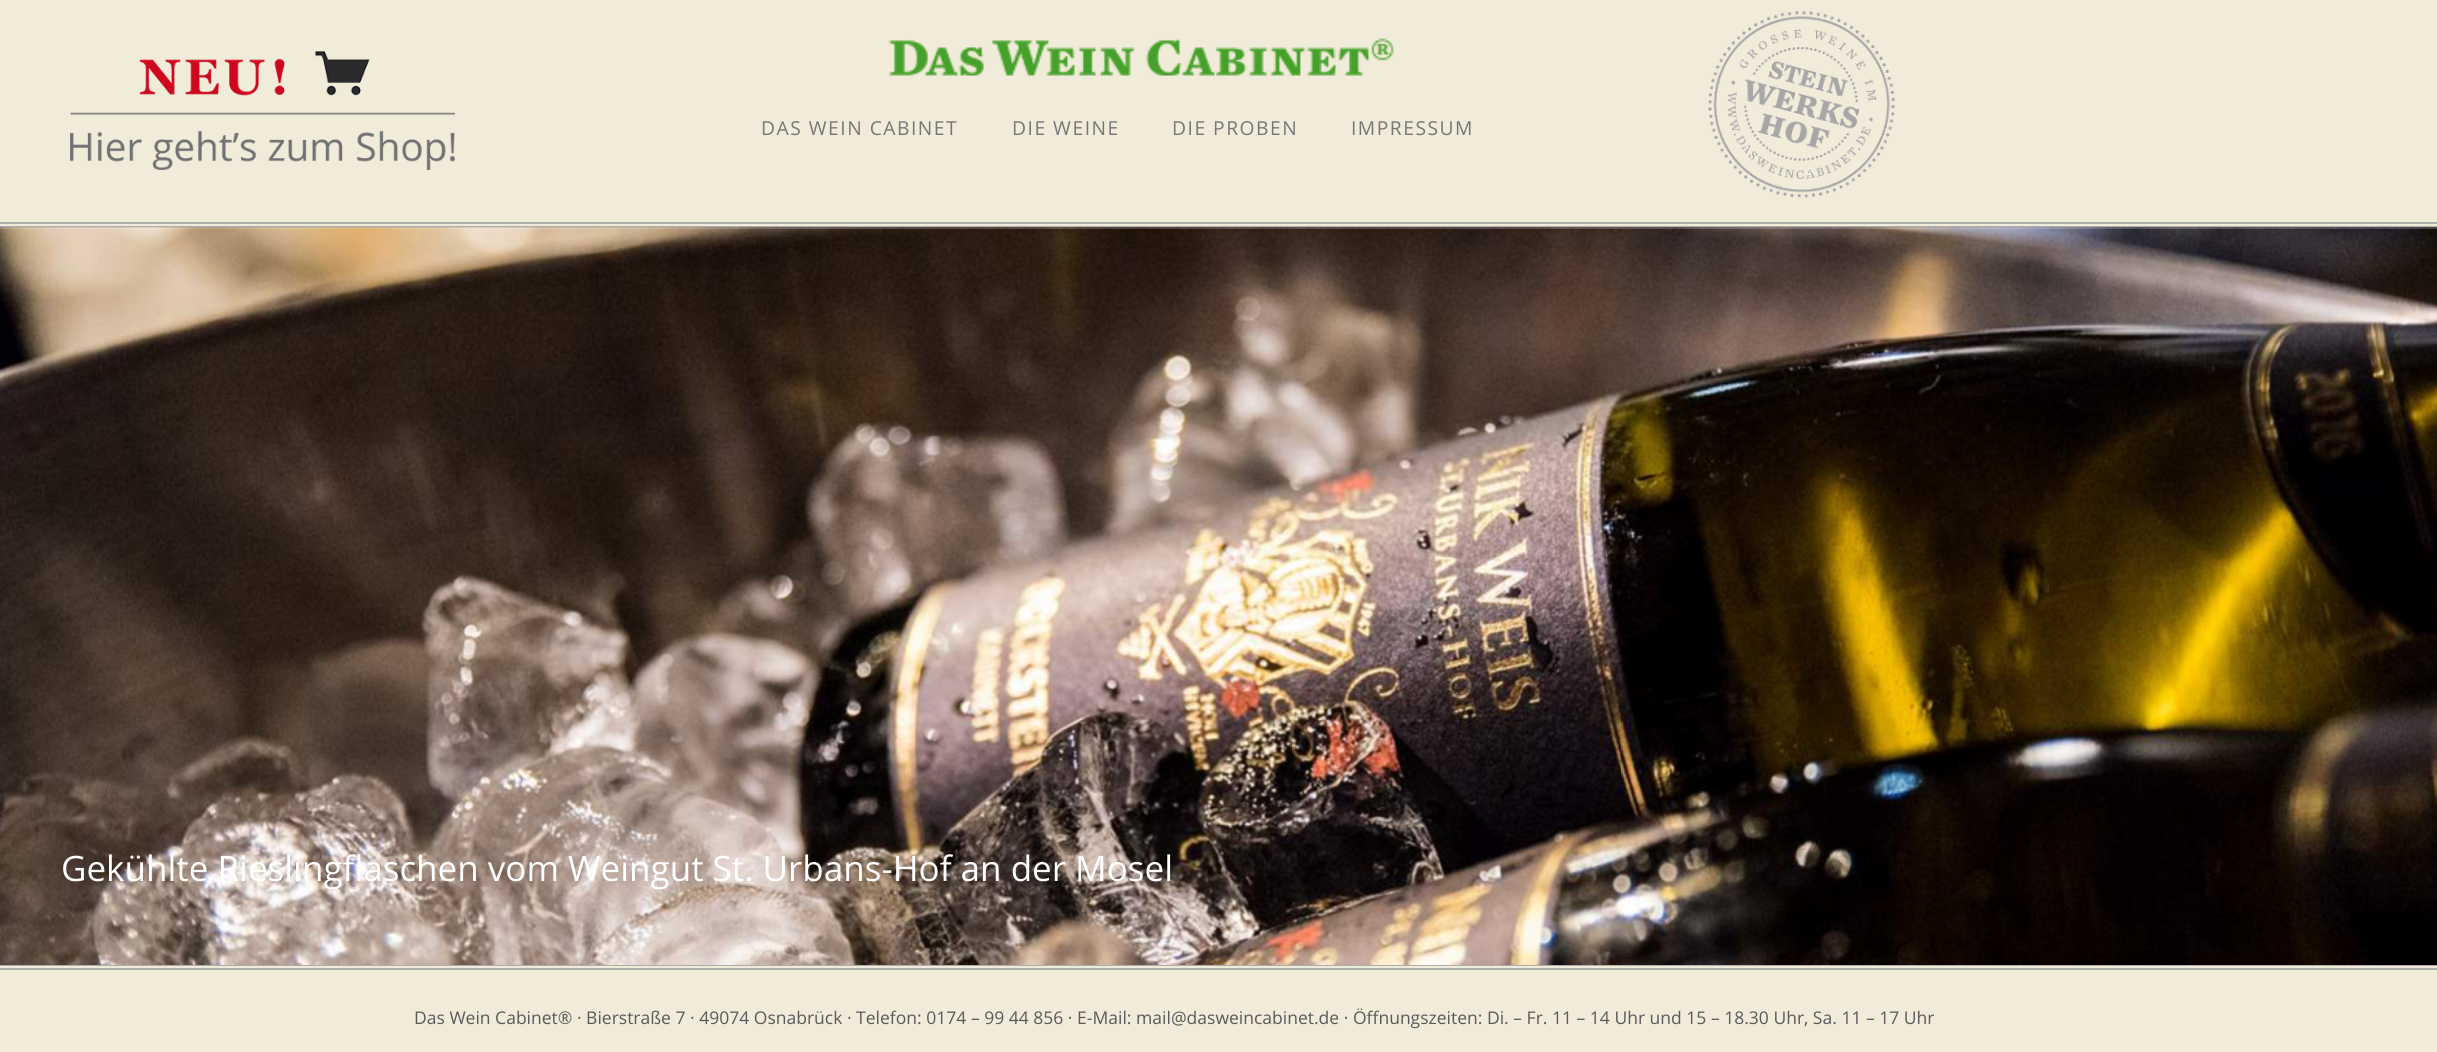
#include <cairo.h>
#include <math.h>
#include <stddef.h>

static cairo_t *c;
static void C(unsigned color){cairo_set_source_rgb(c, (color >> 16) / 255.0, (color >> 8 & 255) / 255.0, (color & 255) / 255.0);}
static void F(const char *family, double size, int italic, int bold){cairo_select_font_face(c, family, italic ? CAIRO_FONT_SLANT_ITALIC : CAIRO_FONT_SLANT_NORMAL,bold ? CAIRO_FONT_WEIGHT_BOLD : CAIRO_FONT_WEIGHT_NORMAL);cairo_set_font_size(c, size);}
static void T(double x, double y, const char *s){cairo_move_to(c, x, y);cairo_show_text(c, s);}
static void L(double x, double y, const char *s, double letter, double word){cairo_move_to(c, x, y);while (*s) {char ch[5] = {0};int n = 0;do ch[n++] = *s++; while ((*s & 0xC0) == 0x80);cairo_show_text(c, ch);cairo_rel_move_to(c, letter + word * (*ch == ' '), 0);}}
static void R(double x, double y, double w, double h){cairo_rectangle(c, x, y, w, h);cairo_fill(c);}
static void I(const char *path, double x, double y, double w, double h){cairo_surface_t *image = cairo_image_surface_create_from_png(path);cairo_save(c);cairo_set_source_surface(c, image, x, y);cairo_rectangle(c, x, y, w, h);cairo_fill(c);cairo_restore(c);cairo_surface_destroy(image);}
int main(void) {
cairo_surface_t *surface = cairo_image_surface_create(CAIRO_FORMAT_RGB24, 2437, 1052);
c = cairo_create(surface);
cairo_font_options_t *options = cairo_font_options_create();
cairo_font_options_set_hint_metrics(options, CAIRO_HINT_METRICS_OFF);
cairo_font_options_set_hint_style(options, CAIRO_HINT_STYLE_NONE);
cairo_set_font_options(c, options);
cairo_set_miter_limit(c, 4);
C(0xf1ebd9);
cairo_paint(c);
I("1.png",70,51,385,119);
I("2.png",888,38,506,38);
F("Open Sans",19.25,0,0);
C(0x777777);
L(761,135,"DAS WEIN CABINET",1.5,0);
L(1012,135,"DIE WEINE",1.5,0);
L(1172,135,"DIE PROBEN",1.5,0);
L(1351,135,"IMPRESSUM",1.5,0);
I("3.png",1708,10,188,188);
C(0xadadad);
R(0,222,2437,2);
R(0,226,2437,2);
I("4.png",0,227,2437,738);
F("Open Sans",35,0,0);
C(0xffffff);
T(61,881,"Gekühlte Rieslingflaschen vom Weingut St. Urbans-Hof an der Mosel");
C(0xadadad);
R(0,965,2437,1);
R(0,968,2437,2);
F("Open Sans",17.5,0,0);
C(0x5a5a5a);
T(414,1024,"Das Wein Cabinet® · Bierstraße 7 · 49074 Osnabrück · Telefon: 0174 – 99 44 856 · E-Mail: mail@dasweincabinet.de · Öffnungszeiten: Di. – Fr. 11 – 14 Uhr und 15 – 18.30 Uhr, Sa. 11 – 17 Uhr");
cairo_surface_write_to_png(surface, "o.png");
cairo_font_options_destroy(options);
cairo_destroy(c);
cairo_surface_destroy(surface);
return 0;
}
